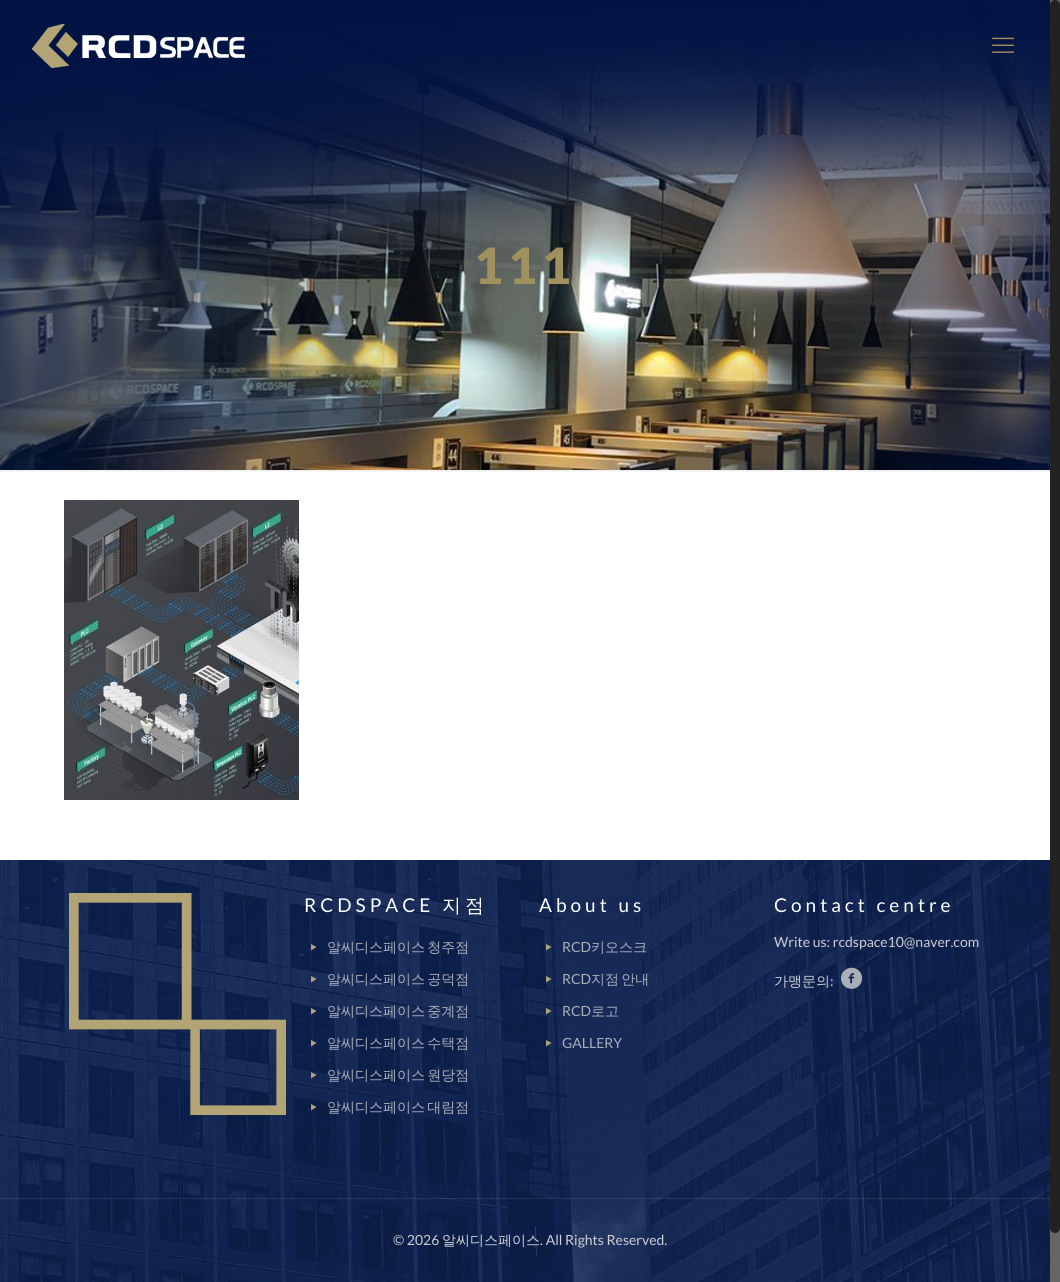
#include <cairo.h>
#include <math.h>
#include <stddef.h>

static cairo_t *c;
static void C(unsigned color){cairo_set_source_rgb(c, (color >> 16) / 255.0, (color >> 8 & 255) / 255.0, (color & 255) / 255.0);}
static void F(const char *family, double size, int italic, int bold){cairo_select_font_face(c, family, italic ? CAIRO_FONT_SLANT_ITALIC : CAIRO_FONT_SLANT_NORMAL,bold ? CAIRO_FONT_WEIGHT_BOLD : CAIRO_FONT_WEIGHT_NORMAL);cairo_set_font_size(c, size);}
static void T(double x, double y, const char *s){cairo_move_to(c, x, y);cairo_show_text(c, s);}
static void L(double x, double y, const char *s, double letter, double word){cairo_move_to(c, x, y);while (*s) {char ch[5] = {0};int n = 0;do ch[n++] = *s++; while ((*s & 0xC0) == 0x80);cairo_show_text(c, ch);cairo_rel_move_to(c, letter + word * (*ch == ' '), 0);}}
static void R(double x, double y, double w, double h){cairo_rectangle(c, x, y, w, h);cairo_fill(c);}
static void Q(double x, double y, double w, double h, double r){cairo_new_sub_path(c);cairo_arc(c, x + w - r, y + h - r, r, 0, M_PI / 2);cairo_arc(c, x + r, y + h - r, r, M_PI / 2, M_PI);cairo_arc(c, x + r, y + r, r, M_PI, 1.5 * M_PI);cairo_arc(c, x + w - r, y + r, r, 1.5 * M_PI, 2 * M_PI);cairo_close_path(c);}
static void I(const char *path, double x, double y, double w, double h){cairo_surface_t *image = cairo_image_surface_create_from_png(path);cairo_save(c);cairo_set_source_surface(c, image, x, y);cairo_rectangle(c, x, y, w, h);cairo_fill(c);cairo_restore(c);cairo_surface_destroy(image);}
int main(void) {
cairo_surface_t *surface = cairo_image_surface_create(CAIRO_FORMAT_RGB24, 1060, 1282);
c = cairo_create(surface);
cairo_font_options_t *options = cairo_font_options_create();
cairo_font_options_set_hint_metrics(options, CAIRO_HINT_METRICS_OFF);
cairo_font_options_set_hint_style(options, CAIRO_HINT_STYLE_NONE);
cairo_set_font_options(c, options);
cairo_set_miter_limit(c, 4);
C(0xffffff);
cairo_paint(c);
I("3.png",0,0,1050,470);
I("1.png",32,24,213,44);
I("2.png",992,37,22,16);
F("Lato Black",50,0,0);
C(0xa0915f);
L(474,284,"111",5,0);
I("4.png",0,470,1050,2);
I("5.png",64,500,235,300);
I("6.png",0,860,1050,422);
I("7.png",69,893,217,222);
F("Lato",19,0,0);
C(0xffffff);
L(304,912,"RCDSPACE",4,0);
F("WenQuanYi Zen Hei Medium",19,0,0);
L(442,912,"지점",4,0);
C(0xb2a475);
cairo_new_path(c);
cairo_move_to(c,311,944);
cairo_line_to(c,316.5,947);
cairo_line_to(c,311,950.5);
cairo_close_path(c);
cairo_fill(c);
F("WenQuanYi Zen Hei Medium",14,0,0);
C(0xaaaeb9);
L(327,952,"알씨디스페이스 청주점",0,-2);
C(0xb2a475);
cairo_new_path(c);
cairo_move_to(c,311,976);
cairo_line_to(c,316.5,979);
cairo_line_to(c,311,982.5);
cairo_close_path(c);
cairo_fill(c);
C(0xaaaeb9);
L(327,984,"알씨디스페이스 공덕점",0,-2);
C(0xb2a475);
cairo_new_path(c);
cairo_move_to(c,311,1008);
cairo_line_to(c,316.5,1011);
cairo_line_to(c,311,1014.5);
cairo_close_path(c);
cairo_fill(c);
C(0xaaaeb9);
L(327,1016,"알씨디스페이스 중계점",0,-2);
C(0xb2a475);
cairo_new_path(c);
cairo_move_to(c,311,1040);
cairo_line_to(c,316.5,1043);
cairo_line_to(c,311,1046.5);
cairo_close_path(c);
cairo_fill(c);
C(0xaaaeb9);
L(327,1048,"알씨디스페이스 수택점",0,-2);
C(0xb2a475);
cairo_new_path(c);
cairo_move_to(c,311,1072);
cairo_line_to(c,316.5,1075);
cairo_line_to(c,311,1078.5);
cairo_close_path(c);
cairo_fill(c);
C(0xaaaeb9);
L(327,1080,"알씨디스페이스 원당점",0,-2);
C(0xb2a475);
cairo_new_path(c);
cairo_move_to(c,311,1104);
cairo_line_to(c,316.5,1107);
cairo_line_to(c,311,1110.5);
cairo_close_path(c);
cairo_fill(c);
C(0xaaaeb9);
L(327,1112,"알씨디스페이스 대림점",0,-2);
F("Lato",19,0,0);
C(0xffffff);
L(539,912,"About us",4,0);
C(0xb2a475);
cairo_new_path(c);
cairo_move_to(c,546,944);
cairo_line_to(c,551.5,947);
cairo_line_to(c,546,950.5);
cairo_close_path(c);
cairo_fill(c);
F("Lato",14,0,0);
C(0xaaaeb9);
T(562,952,"RCD");
F("WenQuanYi Zen Hei Medium",14,0,0);
T(591,952,"키오스크");
C(0xb2a475);
cairo_new_path(c);
cairo_move_to(c,546,976);
cairo_line_to(c,551.5,979);
cairo_line_to(c,546,982.5);
cairo_close_path(c);
cairo_fill(c);
F("Lato",14,0,0);
C(0xaaaeb9);
T(562,984,"RCD");
F("WenQuanYi Zen Hei Medium",14,0,0);
L(591,984,"지점 안내",0,-2);
C(0xb2a475);
cairo_new_path(c);
cairo_move_to(c,546,1008);
cairo_line_to(c,551.5,1011);
cairo_line_to(c,546,1014.5);
cairo_close_path(c);
cairo_fill(c);
F("Lato",14,0,0);
C(0xaaaeb9);
T(562,1016,"RCD");
F("WenQuanYi Zen Hei Medium",14,0,0);
T(591,1016,"로고");
C(0xb2a475);
cairo_new_path(c);
cairo_move_to(c,546,1040);
cairo_line_to(c,551.5,1043);
cairo_line_to(c,546,1046.5);
cairo_close_path(c);
cairo_fill(c);
F("Lato",14,0,0);
C(0xaaaeb9);
T(562,1048,"GALLERY");
F("Lato",19,0,0);
C(0xffffff);
L(774,912,"Contact centre",4,0);
F("Lato",14,0,0);
C(0xccced4);
T(774,947,"Write us: rcdspace10@naver.com");
F("WenQuanYi Zen Hei Medium",14,0,0);
T(774,986,"가맹문의");
F("Lato",14,0,0);
T(830,986,":");
I("8.png",841,967,22,22);
cairo_set_source_rgba(c,1,1,1,0.1);
R(0,1198,1050,1);
C(0xccced4);
T(393,1245,"© 2026");
F("WenQuanYi Zen Hei Medium",14,0,0);
T(442,1245,"알씨디스페이스");
F("Lato",14,0,0);
T(540,1245,". All Rights Reserved.");
C(0x666666);
R(1050,0,10,1282);
C(0x222222);
Q(1050,0,10,1233,5);
cairo_fill(c);
cairo_surface_write_to_png(surface, "o.png");
cairo_font_options_destroy(options);
cairo_destroy(c);
cairo_surface_destroy(surface);
return 0;
}
